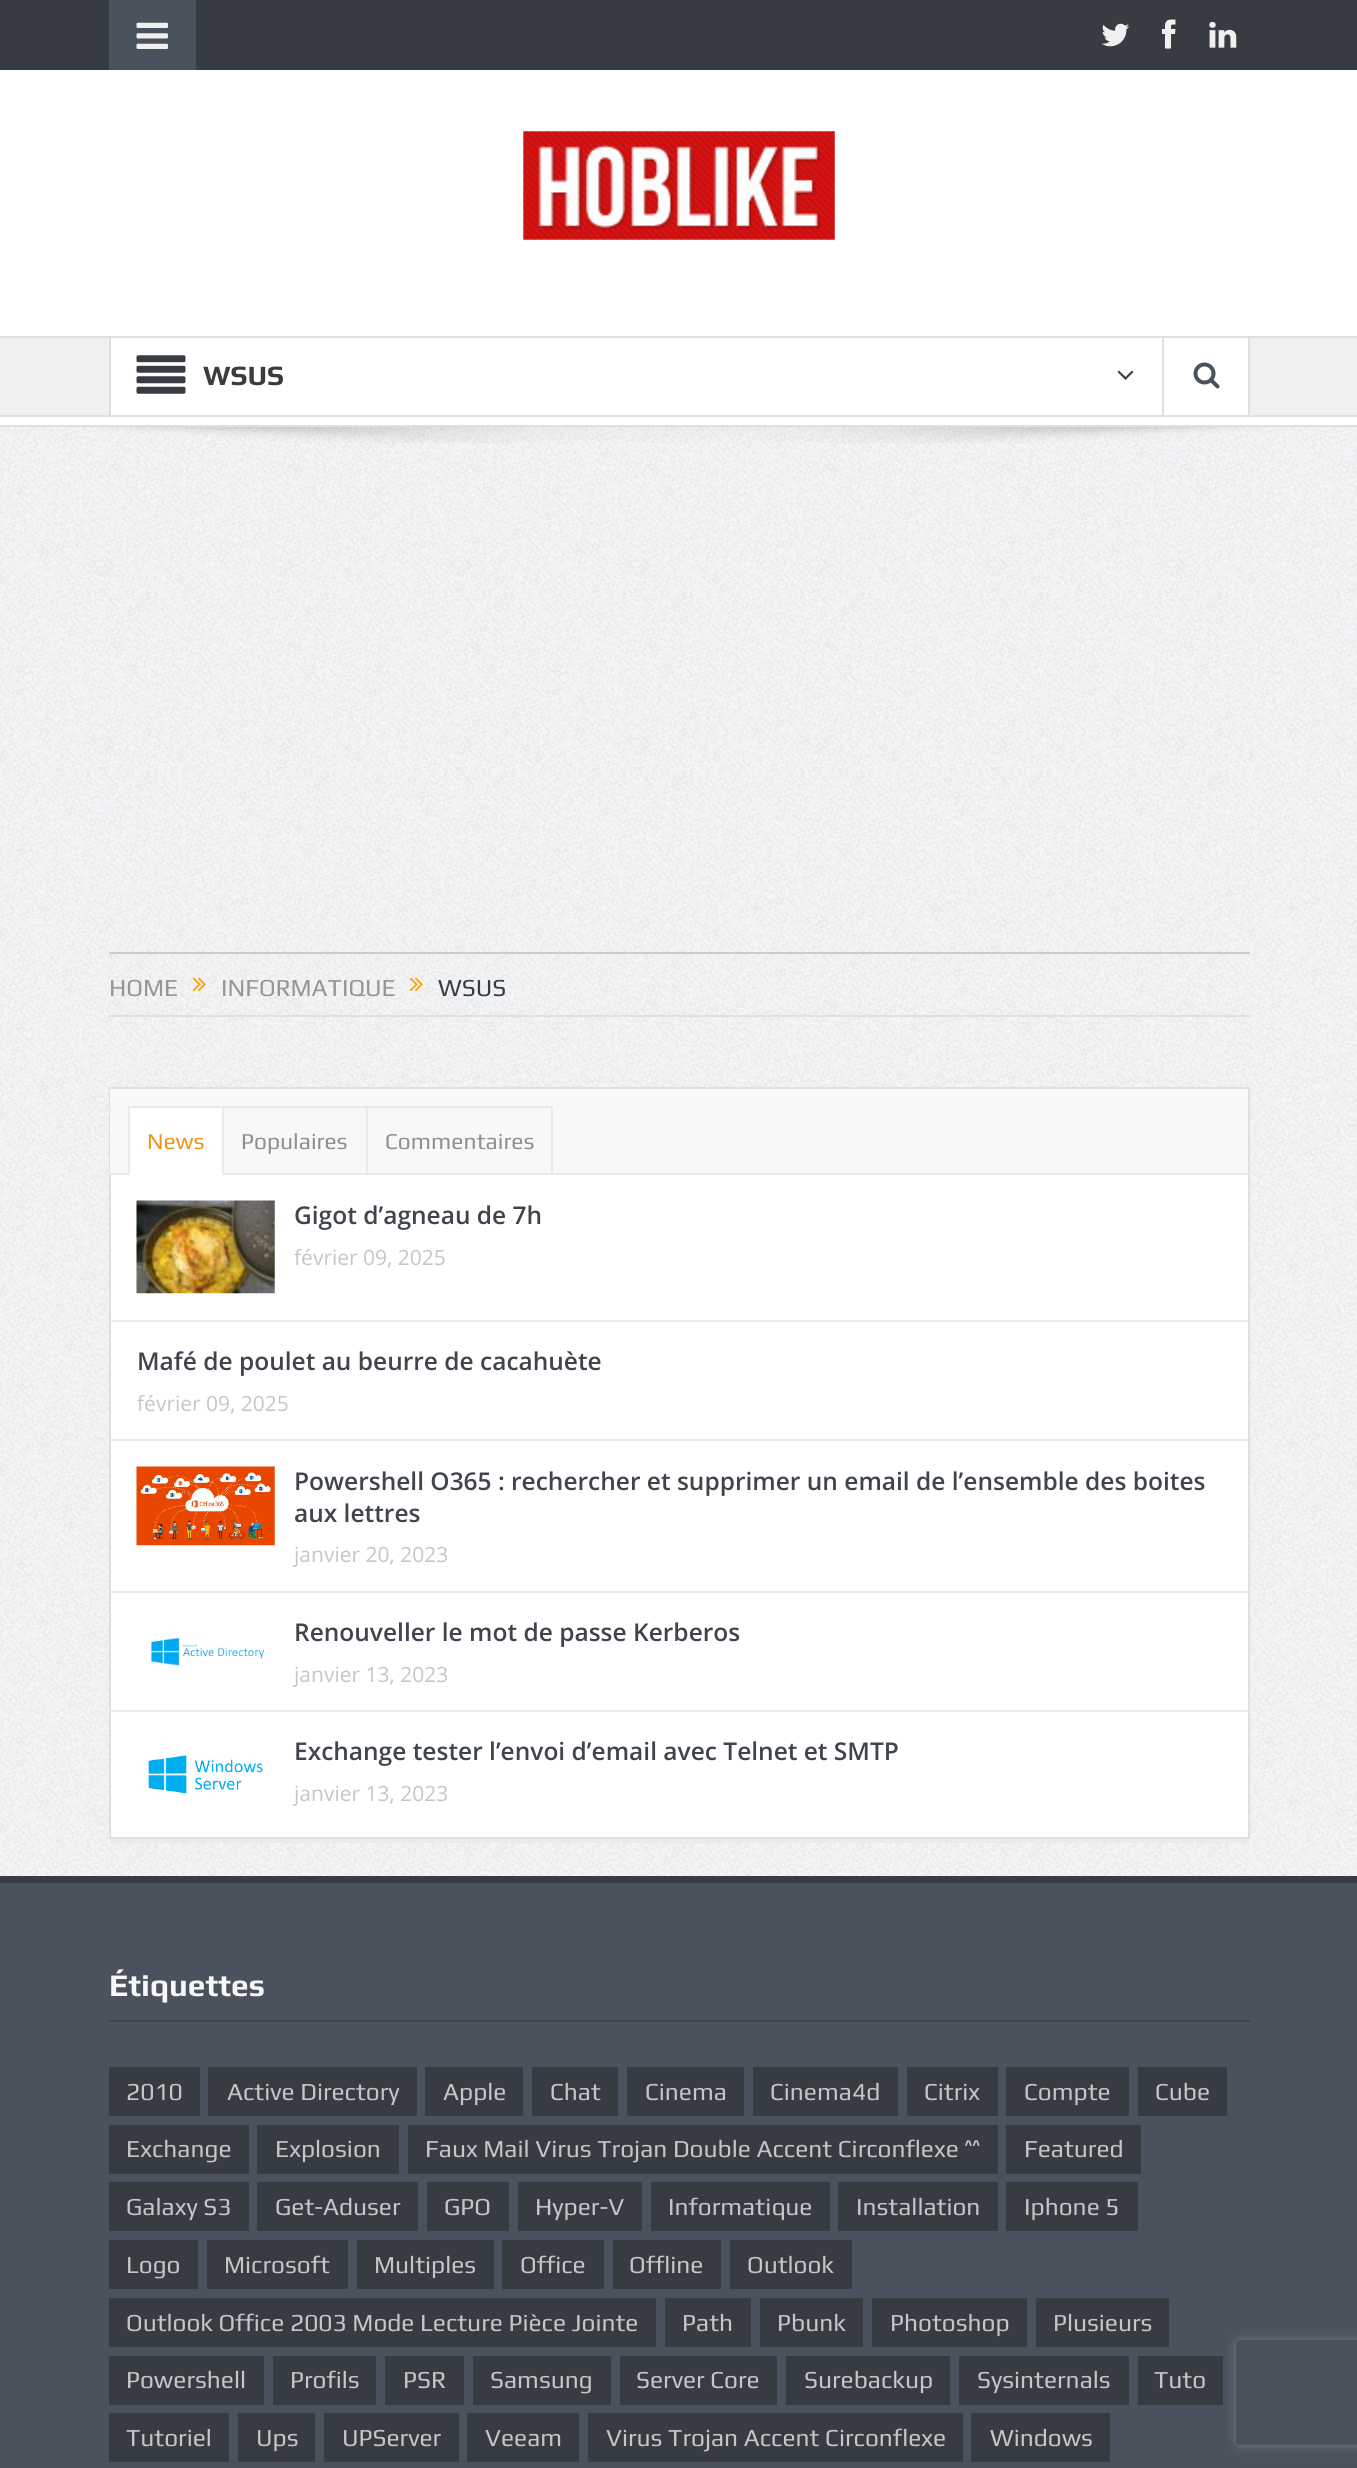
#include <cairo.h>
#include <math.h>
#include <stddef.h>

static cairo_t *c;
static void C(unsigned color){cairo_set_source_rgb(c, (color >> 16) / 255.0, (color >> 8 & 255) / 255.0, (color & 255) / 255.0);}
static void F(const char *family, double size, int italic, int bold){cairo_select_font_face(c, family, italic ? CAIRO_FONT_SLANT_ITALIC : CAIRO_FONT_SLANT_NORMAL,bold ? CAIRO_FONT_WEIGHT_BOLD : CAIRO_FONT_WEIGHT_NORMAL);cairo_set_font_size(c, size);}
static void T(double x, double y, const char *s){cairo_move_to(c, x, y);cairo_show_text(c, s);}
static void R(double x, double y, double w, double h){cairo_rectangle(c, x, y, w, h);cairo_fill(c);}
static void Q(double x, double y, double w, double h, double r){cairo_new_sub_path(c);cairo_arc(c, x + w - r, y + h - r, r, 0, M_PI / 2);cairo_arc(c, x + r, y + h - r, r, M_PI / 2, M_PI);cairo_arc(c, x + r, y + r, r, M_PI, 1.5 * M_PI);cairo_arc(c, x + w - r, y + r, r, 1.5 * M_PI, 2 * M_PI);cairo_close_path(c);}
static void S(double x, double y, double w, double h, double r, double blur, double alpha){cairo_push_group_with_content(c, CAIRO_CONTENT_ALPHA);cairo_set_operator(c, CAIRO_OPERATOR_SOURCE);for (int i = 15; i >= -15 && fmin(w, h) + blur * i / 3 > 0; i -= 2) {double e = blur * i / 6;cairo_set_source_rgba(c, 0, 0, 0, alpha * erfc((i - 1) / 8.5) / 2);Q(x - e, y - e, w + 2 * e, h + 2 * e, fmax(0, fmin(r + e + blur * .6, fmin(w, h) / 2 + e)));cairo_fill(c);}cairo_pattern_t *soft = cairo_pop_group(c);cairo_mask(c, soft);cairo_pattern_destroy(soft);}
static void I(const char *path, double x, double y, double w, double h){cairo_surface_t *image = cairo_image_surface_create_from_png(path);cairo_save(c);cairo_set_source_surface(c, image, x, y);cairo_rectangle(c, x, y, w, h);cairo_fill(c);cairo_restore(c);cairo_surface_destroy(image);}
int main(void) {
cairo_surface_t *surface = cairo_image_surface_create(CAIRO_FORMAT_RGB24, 1357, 2468);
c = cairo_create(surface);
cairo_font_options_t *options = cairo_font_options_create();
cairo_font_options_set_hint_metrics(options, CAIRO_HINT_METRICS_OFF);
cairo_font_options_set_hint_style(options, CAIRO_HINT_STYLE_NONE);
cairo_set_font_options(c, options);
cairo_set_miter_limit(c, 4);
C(0xffffff);
cairo_paint(c);
I("1.png",0,427,1357,1449);
C(0x373c43);
R(0,0,1357,70);
C(0x4a525d);
R(109,0,87,70);
I("2.png",136,22,32,27);
I("3.png",1101,23,28,24);
I("4.png",1162,19,14,30);
I("5.png",1209,21,28,27);
I("6.png",523,131,312,109);
C(0xdfdfdf);
R(0,336,1357,2);
R(0,425,1357,2);
C(0xf0f0f0);
R(0,338,1357,77);
C(0xdfdfdf);
R(0,415,1357,2);
C(0xffffff);
R(111,338,1051,77);
C(0xdfdfdf);
R(109,338,2,77);
I("7.png",136,355,50,39);
F("Play",28,0,1);
C(0x3c3c3c);
T(203,385,"WSUS");
I("8.png",1117,370,17,10);
C(0xffffff);
R(1164,338,84,77);
C(0xdfdfdf);
R(1248,338,2,77);
R(1162,338,2,77);
I("9.png",1193,362,27,27);
I("10.png",99,427,1164,16);
C(0xe0e0e0);
R(109,1015,1141,2);
C(0xcccccc);
R(109,952,1141,2);
F("Play",24.5,0,0);
C(0x959595);
T(109,996,"HOME");
I("11.png",192,977,14,15);
T(221,996,"INFORMATIQUE");
I("12.png",409,977,14,15);
C(0x373c43);
T(438,996,"WSUS");
C(0xffffff);
R(111,1175,1137,662);
cairo_rectangle(c,110,1088,1139,750);
C(0xe0e0e0);
cairo_stroke(c);
C(0xf8f8f8);
R(110,1089,1138,84);
C(0xeaeaea);
R(110,1173,1138,2);
R(128,1106,425,2);
R(222,1106,2,67);
R(128,1106,2,67);
C(0xffffff);
R(130,1108,92,67);
F("Play",22.75,0,0);
C(0xf09217);
T(147,1149,"News");
C(0xeaeaea);
R(366,1106,2,67);
C(0x8e8e8e);
T(241,1149,"Populaires");
C(0xeaeaea);
R(551,1106,2,67);
C(0x8e8e8e);
T(385,1149,"Commentaires");
C(0xeaeaea);
R(110,1320,1138,2);
I("13.png",136,1200,139,94);
F("Open Sans SemiBold",24.5,0,0);
C(0x40454d);
T(294,1224,"Gigot d’agneau de 7h");
F("Open Sans",21,0,0);
C(0xc6c6c6);
T(294,1265,"février 09, 2025");
C(0xeaeaea);
R(110,1439,1138,2);
F("Open Sans SemiBold",24.5,0,0);
C(0x40454d);
T(137,1370,"Mafé de poulet au beurre de cacahuète");
F("Open Sans",21,0,0);
C(0xc6c6c6);
T(137,1411,"février 09, 2025");
C(0xeaeaea);
R(110,1591,1138,2);
I("14.png",136,1466,139,80);
F("Open Sans SemiBold",24.5,0,0);
C(0x40454d);
T(294,1490,"Powershell O365 : rechercher et supprimer un email de l’ensemble des boites");
T(294,1522,"aux lettres");
F("Open Sans",21,0,0);
C(0xc6c6c6);
T(294,1562,"janvier 20, 2023");
C(0xeaeaea);
R(110,1710,1138,2);
I("15.png",151,1637,114,29);
F("Open Sans SemiBold",24.5,0,0);
C(0x40454d);
T(294,1641,"Renouveller le mot de passe Kerberos");
F("Open Sans",21,0,0);
C(0xc6c6c6);
T(294,1682,"janvier 13, 2023");
I("16.png",148,1755,115,39);
F("Open Sans SemiBold",24.5,0,0);
C(0x40454d);
T(294,1760,"Exchange tester l’envoi d’email avec Telnet et SMTP");
F("Open Sans",21,0,0);
C(0xc6c6c6);
T(294,1801,"janvier 13, 2023");
C(0xebebeb);
R(110,1839,1138,4);
C(0x4a525d);
R(0,1883,1357,585);
C(0x373c43);
R(0,1876,1357,7);
C(0x3e454f);
R(109,2020,1141,2);
F("Play",31.5,0,1);
C(0xf8f8f8);
T(109,1996,"Étiquettes");
C(0x373c43);
R(109,2067,91,49);
F("Play",24.5,0,0);
C(0xc6c6c6);
T(126,2100,"2010");
C(0x373c43);
R(208,2067,209,49);
C(0xc6c6c6);
T(227,2100,"Active Directory");
C(0x373c43);
R(425,2067,98,49);
C(0xc6c6c6);
T(443,2100,"Apple");
C(0x373c43);
R(532,2067,86,49);
C(0xc6c6c6);
T(550,2100,"Chat");
C(0x373c43);
R(627,2067,117,49);
C(0xc6c6c6);
T(645,2100,"Cinema");
C(0x373c43);
R(753,2067,145,49);
C(0xc6c6c6);
T(770,2100,"Cinema4d");
C(0x373c43);
R(907,2067,91,49);
C(0xc6c6c6);
T(924,2100,"Citrix");
C(0x373c43);
R(1006,2067,123,49);
C(0xc6c6c6);
T(1024,2100,"Compte");
C(0x373c43);
R(1138,2067,89,49);
C(0xc6c6c6);
T(1155,2100,"Cube");
C(0x373c43);
R(109,2125,140,49);
C(0xc6c6c6);
T(126,2157,"Exchange");
C(0x373c43);
R(257,2125,142,49);
C(0xc6c6c6);
T(275,2157,"Explosion");
C(0x373c43);
R(408,2125,590,49);
C(0xc6c6c6);
T(425,2157,"Faux Mail Virus Trojan Double Accent Circonflexe ^^");
C(0x373c43);
R(1006,2125,135,49);
C(0xc6c6c6);
T(1024,2157,"Featured");
C(0x373c43);
R(109,2182,140,49);
C(0xc6c6c6);
T(126,2215,"Galaxy S3");
C(0x373c43);
R(257,2182,161,49);
C(0xc6c6c6);
T(275,2215,"Get-Aduser");
C(0x373c43);
R(427,2182,82,49);
C(0xc6c6c6);
T(444,2215,"GPO");
C(0x373c43);
R(518,2182,124,49);
C(0xc6c6c6);
T(535,2215,"Hyper-V");
C(0x373c43);
R(651,2182,179,49);
C(0xc6c6c6);
T(668,2215,"Informatique");
C(0x373c43);
R(838,2182,160,49);
C(0xc6c6c6);
T(856,2215,"Installation");
C(0x373c43);
R(1006,2182,132,49);
C(0xc6c6c6);
T(1024,2215,"Iphone 5");
C(0x373c43);
R(109,2240,89,49);
C(0xc6c6c6);
T(126,2273,"Logo");
C(0x373c43);
R(207,2240,141,49);
C(0xc6c6c6);
T(224,2273,"Microsoft");
C(0x373c43);
R(357,2240,137,49);
C(0xc6c6c6);
T(374,2273,"Multiples");
C(0x373c43);
R(502,2240,102,49);
C(0xc6c6c6);
T(520,2273,"Office");
C(0x373c43);
R(613,2240,108,49);
C(0xc6c6c6);
T(629,2273,"Offline");
C(0x373c43);
R(730,2240,122,49);
C(0xc6c6c6);
T(747,2273,"Outlook");
C(0x373c43);
R(109,2298,547,49);
C(0xc6c6c6);
T(126,2331,"Outlook Office 2003 Mode Lecture Pièce Jointe");
C(0x373c43);
R(665,2298,86,49);
C(0xc6c6c6);
T(682,2331,"Path");
C(0x373c43);
R(760,2298,103,49);
C(0xc6c6c6);
T(777,2331,"Pbunk");
C(0x373c43);
R(872,2298,155,49);
C(0xc6c6c6);
T(890,2331,"Photoshop");
C(0x373c43);
R(1036,2298,133,49);
C(0xc6c6c6);
T(1053,2331,"Plusieurs");
C(0x373c43);
R(109,2356,155,49);
C(0xc6c6c6);
T(126,2388,"Powershell");
C(0x373c43);
R(273,2356,103,49);
C(0xc6c6c6);
T(290,2388,"Profils");
C(0x373c43);
R(385,2356,79,49);
C(0xc6c6c6);
T(403,2388,"PSR");
C(0x373c43);
R(473,2356,138,49);
C(0xc6c6c6);
T(490,2388,"Samsung");
C(0x373c43);
R(620,2356,157,49);
C(0xc6c6c6);
T(636,2388,"Server Core");
C(0x373c43);
R(786,2356,164,49);
C(0xc6c6c6);
T(804,2388,"Surebackup");
C(0x373c43);
R(959,2356,170,49);
C(0xc6c6c6);
T(977,2388,"Sysinternals");
C(0x373c43);
R(1138,2356,85,49);
C(0xc6c6c6);
T(1154,2388,"Tuto");
C(0x373c43);
R(109,2413,120,49);
C(0xc6c6c6);
T(126,2446,"Tutoriel");
C(0x373c43);
R(238,2413,77,49);
C(0xc6c6c6);
T(256,2446,"Ups");
C(0x373c43);
R(324,2413,135,49);
C(0xc6c6c6);
T(342,2446,"UPServer");
C(0x373c43);
R(467,2413,112,49);
C(0xc6c6c6);
T(485,2446,"Veeam");
C(0x373c43);
R(588,2413,375,49);
C(0xc6c6c6);
T(606,2446,"Virus Trojan Accent Circonflexe");
C(0x373c43);
R(971,2413,139,49);
C(0xc6c6c6);
T(990,2446,"Windows");
cairo_save(c);
cairo_set_fill_rule(c,CAIRO_FILL_RULE_EVEN_ODD);
cairo_new_path(c);
cairo_move_to(c,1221,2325);
cairo_line_to(c,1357,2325);
cairo_line_to(c,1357,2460);
cairo_line_to(c,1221,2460);
cairo_close_path(c);
cairo_move_to(c,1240,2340);
cairo_line_to(c,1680,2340);
cairo_curve_to(c,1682,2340,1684,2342,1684,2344);
cairo_line_to(c,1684,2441);
cairo_curve_to(c,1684,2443,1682,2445,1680,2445);
cairo_line_to(c,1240,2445);
cairo_curve_to(c,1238,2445,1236,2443,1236,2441);
cairo_line_to(c,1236,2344);
cairo_curve_to(c,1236,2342,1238,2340,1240,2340);
cairo_close_path(c);
cairo_clip(c);
C(0x808080);
S(1236,2340,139,105,4,4.5,1);
cairo_restore(c);
cairo_surface_write_to_png(surface, "o.png");
cairo_font_options_destroy(options);
cairo_destroy(c);
cairo_surface_destroy(surface);
return 0;
}
